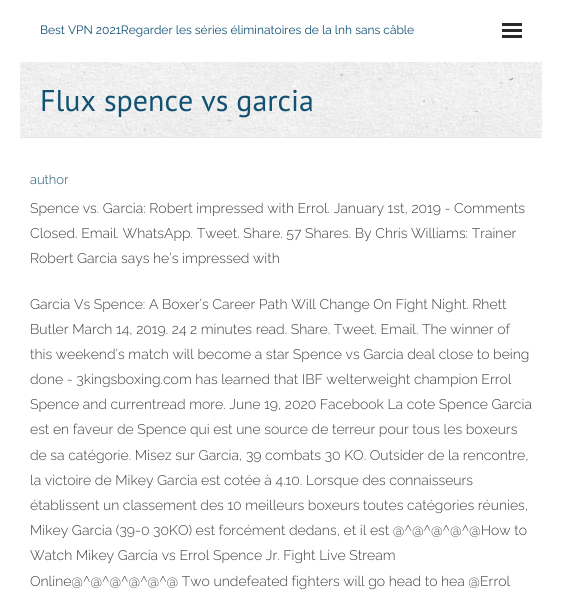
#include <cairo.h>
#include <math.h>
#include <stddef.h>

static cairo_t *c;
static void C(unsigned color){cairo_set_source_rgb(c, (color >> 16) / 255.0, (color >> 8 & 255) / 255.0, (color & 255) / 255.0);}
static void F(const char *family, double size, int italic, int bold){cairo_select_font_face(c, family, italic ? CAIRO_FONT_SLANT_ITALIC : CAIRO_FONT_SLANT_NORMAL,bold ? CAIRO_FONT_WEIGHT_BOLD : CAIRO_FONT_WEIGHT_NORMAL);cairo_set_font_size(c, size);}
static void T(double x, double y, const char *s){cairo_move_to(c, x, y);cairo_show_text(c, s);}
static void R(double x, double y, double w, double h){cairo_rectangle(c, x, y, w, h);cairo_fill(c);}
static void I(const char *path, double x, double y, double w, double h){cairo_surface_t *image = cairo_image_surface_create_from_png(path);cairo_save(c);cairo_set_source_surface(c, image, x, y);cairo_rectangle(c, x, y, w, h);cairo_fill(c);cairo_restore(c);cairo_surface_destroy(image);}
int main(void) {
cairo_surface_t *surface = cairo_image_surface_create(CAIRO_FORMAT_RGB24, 562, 590);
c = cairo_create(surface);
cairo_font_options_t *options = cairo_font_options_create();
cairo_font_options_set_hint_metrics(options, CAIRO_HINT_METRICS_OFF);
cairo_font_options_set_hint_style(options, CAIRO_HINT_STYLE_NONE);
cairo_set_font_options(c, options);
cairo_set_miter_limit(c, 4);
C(0xffffff);
cairo_paint(c);
F("Raleway",12,0,0);
C(0x115172);
T(40,34,"Best VPN 2021Regarder les séries éliminatoires de la lnh sans câble");
C(0x292929);
R(502,23,20,3);
R(502,29,20,3);
R(502,35,20,3);
I("1.png",20,62,522,75);
C(0xe5e5e5);
R(20,137,522,1);
F("PT Sans",30,0,0);
C(0x115172);
T(40,111,"Flux spence vs garcia");
F("Raleway Light",13,0,0);
T(30,184,"author");
F("Raleway Light",14,0,0);
C(0x3d3d3d);
T(30,213,"Spence vs. Garcia: Robert impressed with Errol. January 1st, 2019 - Comments");
T(30,238,"Closed. Email. WhatsApp. Tweet. Share. 57 Shares. By Chris Williams: Trainer");
T(30,263,"Robert Garcia says he’s impressed with");
T(30,309,"Garcia Vs Spence: A Boxer’s Career Path Will Change On Fight Night. Rhett");
T(30,334,"Butler March 14, 2019. 24 2 minutes read. Share. Tweet. Email. The winner of");
T(30,359,"this weekend’s match will become a star Spence vs Garcia deal close to being");
T(30,384,"done - 3kingsboxing.com has learned that IBF welterweight champion Errol");
T(30,409,"Spence and currentread more. June 19, 2020 Facebook La cote Spence Garcia");
T(30,434,"est en faveur de Spence qui est une source de terreur pour tous les boxeurs");
T(30,460,"de sa catégorie. Misez sur Garcia, 39 combats 30 KO. Outsider de la rencontre,");
T(30,485,"la victoire de Mikey Garcia est cotée à 4.10. Lorsque des connaisseurs");
T(30,510,"établissent un classement des 10 meilleurs boxeurs toutes catégories réunies,");
T(30,535,"Mikey Garcia (39-0 30KO) est forcément dedans, et il est @^@^@^@^@How to");
T(30,560,"Watch Mikey Garcia vs Errol Spence Jr. Fight Live Stream");
T(30,586,"Online@^@^@^@^@^@ Two undefeated fighters will go head to hea @Errol");
cairo_surface_write_to_png(surface, "o.png");
cairo_font_options_destroy(options);
cairo_destroy(c);
cairo_surface_destroy(surface);
return 0;
}
